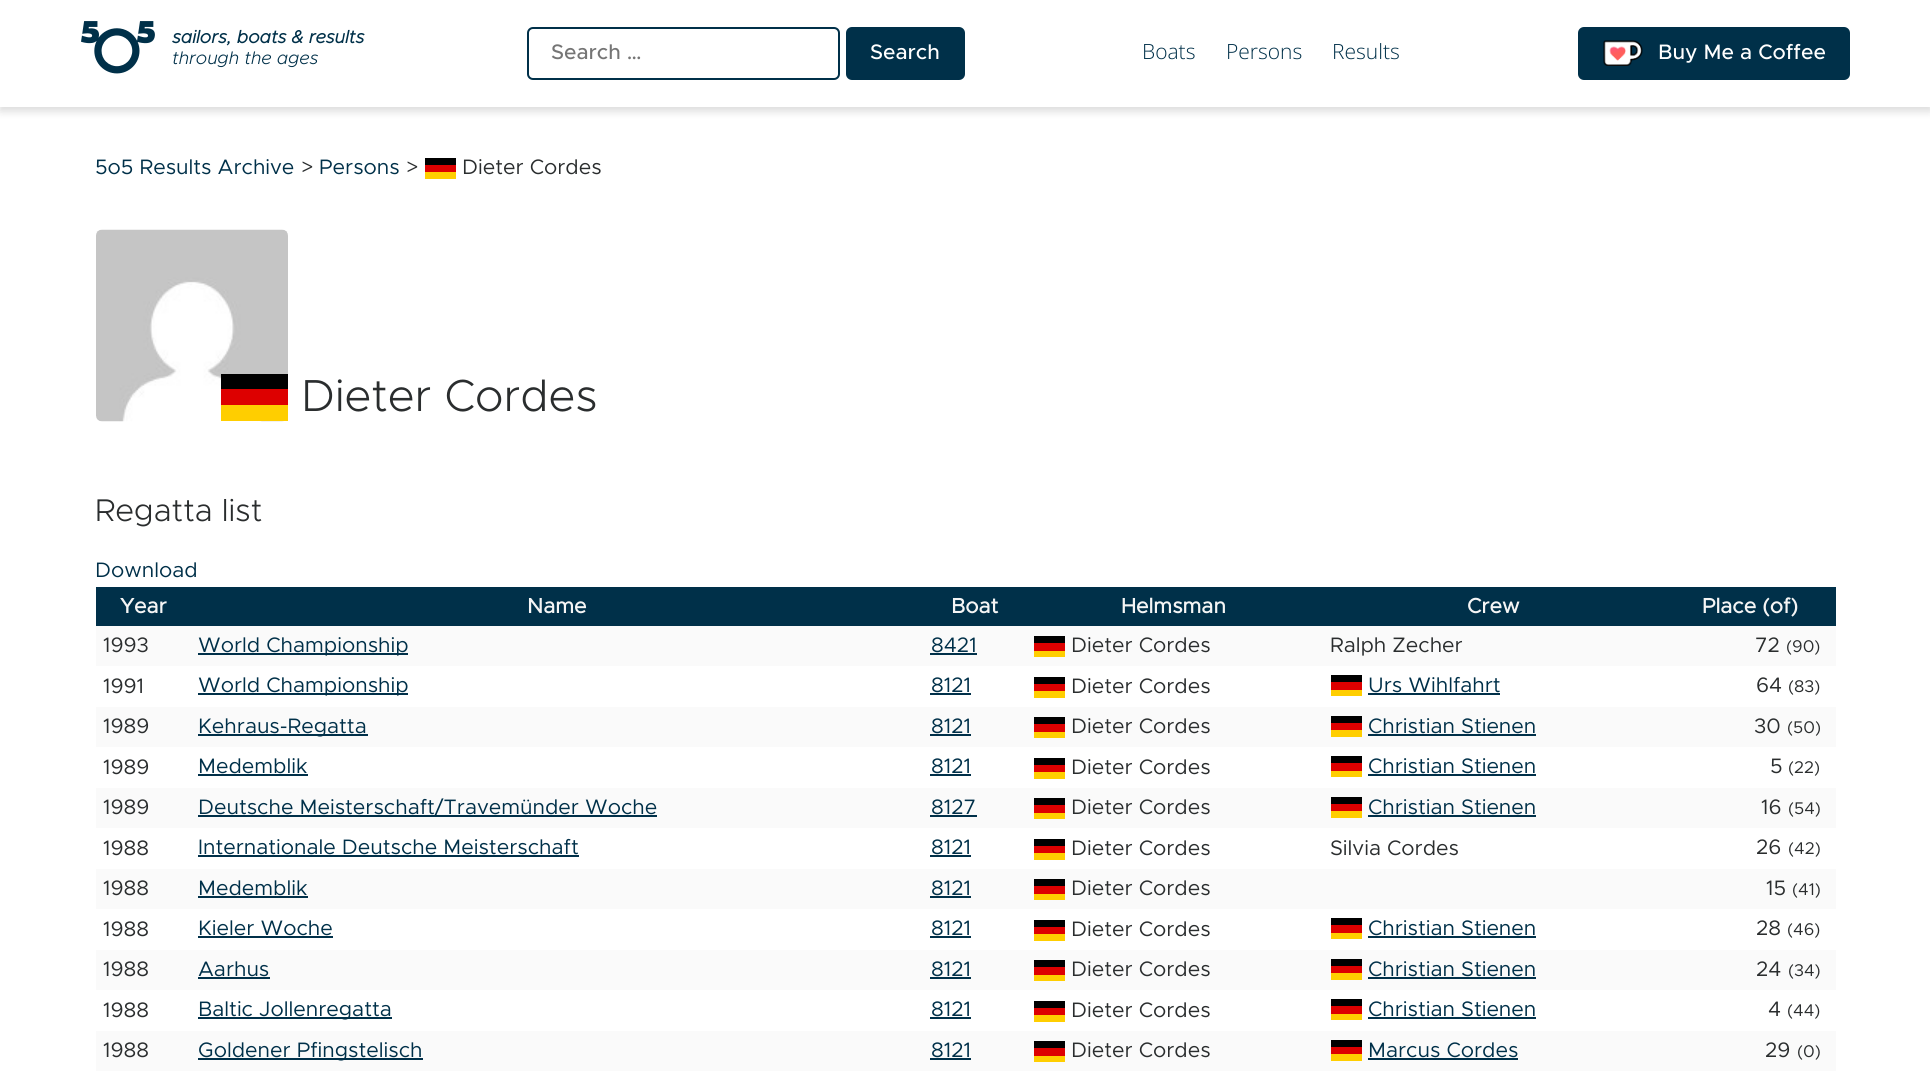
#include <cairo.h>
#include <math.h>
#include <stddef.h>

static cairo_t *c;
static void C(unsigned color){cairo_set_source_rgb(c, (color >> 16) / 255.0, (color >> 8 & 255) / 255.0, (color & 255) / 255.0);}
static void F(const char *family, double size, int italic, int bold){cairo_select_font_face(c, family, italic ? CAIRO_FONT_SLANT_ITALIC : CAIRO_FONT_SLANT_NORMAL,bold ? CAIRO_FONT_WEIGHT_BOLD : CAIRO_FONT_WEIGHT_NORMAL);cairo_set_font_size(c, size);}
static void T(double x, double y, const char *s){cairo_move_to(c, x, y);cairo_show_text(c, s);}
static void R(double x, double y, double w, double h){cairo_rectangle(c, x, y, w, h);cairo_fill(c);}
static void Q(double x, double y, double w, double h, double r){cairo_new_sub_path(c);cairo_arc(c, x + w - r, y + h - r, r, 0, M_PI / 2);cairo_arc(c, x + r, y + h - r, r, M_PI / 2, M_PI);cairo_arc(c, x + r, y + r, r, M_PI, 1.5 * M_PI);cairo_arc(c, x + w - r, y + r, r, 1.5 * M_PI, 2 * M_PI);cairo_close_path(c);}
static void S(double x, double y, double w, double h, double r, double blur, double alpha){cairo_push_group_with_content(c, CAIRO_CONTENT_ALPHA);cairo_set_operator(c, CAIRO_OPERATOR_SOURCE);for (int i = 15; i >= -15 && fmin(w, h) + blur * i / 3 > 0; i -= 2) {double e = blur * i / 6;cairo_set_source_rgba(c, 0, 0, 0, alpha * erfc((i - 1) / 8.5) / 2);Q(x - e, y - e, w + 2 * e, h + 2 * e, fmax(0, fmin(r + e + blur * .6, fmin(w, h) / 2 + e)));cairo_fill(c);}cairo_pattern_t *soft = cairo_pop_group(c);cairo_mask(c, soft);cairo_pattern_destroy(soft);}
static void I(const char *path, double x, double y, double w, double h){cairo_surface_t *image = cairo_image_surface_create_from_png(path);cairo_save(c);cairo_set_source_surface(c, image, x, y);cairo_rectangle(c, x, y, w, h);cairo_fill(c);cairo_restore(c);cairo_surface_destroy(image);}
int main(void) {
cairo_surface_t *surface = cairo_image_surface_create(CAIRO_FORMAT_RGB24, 1930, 1080);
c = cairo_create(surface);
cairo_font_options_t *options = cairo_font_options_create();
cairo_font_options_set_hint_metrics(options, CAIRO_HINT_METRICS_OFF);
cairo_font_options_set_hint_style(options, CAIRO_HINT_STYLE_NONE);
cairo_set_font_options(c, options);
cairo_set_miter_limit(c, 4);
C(0xffffff);
cairo_paint(c);
cairo_save(c);
cairo_set_fill_rule(c,CAIRO_FILL_RULE_EVEN_ODD);
cairo_new_path(c);
cairo_move_to(c,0,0);
cairo_line_to(c,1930,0);
cairo_line_to(c,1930,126);
cairo_line_to(c,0,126);
cairo_close_path(c);
cairo_move_to(c,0,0);
cairo_line_to(c,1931,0);
cairo_line_to(c,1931,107);
cairo_line_to(c,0,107);
cairo_close_path(c);
cairo_clip(c);
C(0x000000);
S(0,5,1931,106,0,4.5,.15);
cairo_restore(c);
I("1.png",81,21,74,53);
F("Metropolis",18,1,1);
C(0x003049);
T(172,43,"sailors, boats & results");
F("Metropolis Light",18,1,0);
T(172,64,"through the ages");
Q(528,28,311,51,5);
cairo_stroke(c);
F("Metropolis Medium",21,0,0);
C(0x757575);
T(551,59,"Search …");
C(0x003049);
Q(847,28,117,51,5);
cairo_fill_preserve(c);
cairo_stroke(c);
C(0xffffff);
T(870,59,"Search");
F("Open Sans Light",21,0,0);
C(0x003049);
T(1142,59,"Boats");
T(1226,59,"Persons");
T(1332,59,"Results");
Q(1579,28,270,51,5);
cairo_fill_preserve(c);
cairo_stroke(c);
I("2.png",1603,40,40,26);
F("Metropolis Medium",21,0,0);
C(0xffffff);
T(1658,59,"Buy Me a Coffee");
F("Metropolis",21,0,0);
C(0x003049);
T(95,174,"5o5 Results Archive");
C(0x2a2d2e);
T(301,174,">");
C(0x003049);
T(319,174,"Persons");
C(0x2a2d2e);
T(406,174,">");
T(462,174,"Dieter Cordes");
C(0x000000);
R(425,158,31,7);
C(0xdd0000);
R(425,165,31,7);
C(0xffce00);
R(425,172,31,7);
I("3.png",96,229,192,193);
C(0x000000);
R(221,374,67,15);
C(0xdd0000);
R(221,389,67,16);
C(0xffce00);
R(221,405,67,16);
F("Metropolis Light",45,0,0);
C(0x2a2d2e);
T(301,411,"Dieter Cordes");
F("Metropolis Light",31.5,0,0);
T(95,521,"Regatta list");
F("Metropolis",21,0,0);
C(0x003049);
T(95,577,"Download");
R(96,587,1740,39);
F("Metropolis",21,0,1);
C(0xf5f5f5);
T(120,613,"Year");
T(527,613,"Name");
T(951,613,"Boat");
T(1121,613,"Helmsman");
T(1467,613,"Crew");
T(1702,613,"Place (of)");
C(0xfafafa);
R(96,626,1740,40);
F("Metropolis",21,0,0);
C(0x2a2d2e);
T(103,652,"1993");
C(0x003049);
R(198,653,210,2);
T(198,652,"World Championship");
T(931,652,"8421");
R(930,653,47,2);
C(0x2a2d2e);
T(1071,652,"Dieter Cordes");
C(0x000000);
R(1034,636,31,7);
C(0xdd0000);
R(1034,643,31,8);
C(0xffce00);
R(1034,651,31,6);
C(0x2a2d2e);
T(1330,652,"Ralph Zecher");
T(1755,652,"72");
F("Metropolis",17,0,0);
T(1786,652,"(90)");
F("Metropolis",21,0,0);
T(103,693,"1991");
C(0x003049);
R(198,693,210,2);
T(198,692,"World Championship");
T(931,692,"8121");
R(930,693,41,2);
C(0x2a2d2e);
T(1071,693,"Dieter Cordes");
C(0x000000);
R(1034,677,31,7);
C(0xdd0000);
R(1034,684,31,7);
C(0xffce00);
R(1034,691,31,7);
C(0x003049);
T(1368,692,"Urs Wihlfahrt");
C(0x000000);
R(1331,675,31,7);
C(0xdd0000);
R(1331,682,31,8);
C(0xffce00);
R(1331,690,31,6);
C(0x003049);
R(1368,693,132,2);
C(0x2a2d2e);
T(1756,692,"64");
F("Metropolis",17,0,0);
T(1788,692,"(83)");
C(0xfafafa);
R(96,707,1740,40);
F("Metropolis",21,0,0);
C(0x2a2d2e);
T(103,733,"1989");
C(0x003049);
R(198,734,170,2);
T(198,733,"Kehraus-Regatta");
T(931,733,"8121");
R(930,734,41,2);
C(0x2a2d2e);
T(1071,733,"Dieter Cordes");
C(0x000000);
R(1034,717,31,7);
C(0xdd0000);
R(1034,724,31,8);
C(0xffce00);
R(1034,732,31,6);
C(0x003049);
T(1368,733,"Christian Stienen");
C(0x000000);
R(1331,716,31,7);
C(0xdd0000);
R(1331,723,31,7);
C(0xffce00);
R(1331,730,31,7);
C(0x003049);
R(1368,734,168,2);
C(0x2a2d2e);
T(1754,733,"30");
F("Metropolis",17,0,0);
T(1787,733,"(50)");
F("Metropolis",21,0,0);
T(103,774,"1989");
C(0x003049);
T(198,773,"Medemblik");
R(198,774,110,2);
T(931,773,"8121");
R(930,774,41,2);
C(0x2a2d2e);
T(1071,774,"Dieter Cordes");
C(0x000000);
R(1034,758,31,7);
C(0xdd0000);
R(1034,765,31,7);
C(0xffce00);
R(1034,772,31,7);
C(0x003049);
T(1368,773,"Christian Stienen");
C(0x000000);
R(1331,756,31,7);
C(0xdd0000);
R(1331,763,31,8);
C(0xffce00);
R(1331,771,31,6);
C(0x003049);
R(1368,774,168,2);
C(0x2a2d2e);
T(1770,773,"5");
F("Metropolis",17,0,0);
T(1788,773,"(22)");
C(0xfafafa);
R(96,788,1740,40);
F("Metropolis",21,0,0);
C(0x2a2d2e);
T(103,814,"1989");
C(0x003049);
R(198,815,459,2);
T(198,814,"Deutsche Meisterschaft/Travemünder Woche");
T(931,814,"8127");
R(930,815,47,2);
C(0x2a2d2e);
T(1071,814,"Dieter Cordes");
C(0x000000);
R(1034,798,31,7);
C(0xdd0000);
R(1034,805,31,8);
C(0xffce00);
R(1034,813,31,6);
C(0x003049);
T(1368,814,"Christian Stienen");
C(0x000000);
R(1331,797,31,7);
C(0xdd0000);
R(1331,804,31,7);
C(0xffce00);
R(1331,811,31,7);
C(0x003049);
R(1368,815,168,2);
C(0x2a2d2e);
T(1761,814,"16");
F("Metropolis",17,0,0);
T(1788,814,"(54)");
F("Metropolis",21,0,0);
T(103,855,"1988");
C(0x003049);
T(198,854,"Internationale Deutsche Meisterschaft");
R(198,855,381,2);
T(931,854,"8121");
R(930,855,41,2);
C(0x2a2d2e);
T(1071,855,"Dieter Cordes");
C(0x000000);
R(1034,839,31,7);
C(0xdd0000);
R(1034,846,31,7);
C(0xffce00);
R(1034,853,31,7);
C(0x2a2d2e);
T(1330,855,"Silvia Cordes");
T(1756,854,"26");
F("Metropolis",17,0,0);
T(1788,854,"(42)");
C(0xfafafa);
R(96,869,1740,40);
F("Metropolis",21,0,0);
C(0x2a2d2e);
T(103,895,"1988");
C(0x003049);
T(198,895,"Medemblik");
R(198,896,110,2);
T(931,895,"8121");
R(930,896,41,2);
C(0x2a2d2e);
T(1071,895,"Dieter Cordes");
C(0x000000);
R(1034,879,31,7);
C(0xdd0000);
R(1034,886,31,8);
C(0xffce00);
R(1034,894,31,6);
C(0x2a2d2e);
T(1766,895,"15");
F("Metropolis",17,0,0);
T(1792,895,"(41)");
F("Metropolis",21,0,0);
T(103,936,"1988");
C(0x003049);
T(198,935,"Kieler Woche");
R(198,936,135,2);
T(931,935,"8121");
R(930,936,41,2);
C(0x2a2d2e);
T(1071,936,"Dieter Cordes");
C(0x000000);
R(1034,920,31,7);
C(0xdd0000);
R(1034,927,31,7);
C(0xffce00);
R(1034,934,31,7);
C(0x003049);
T(1368,935,"Christian Stienen");
C(0x000000);
R(1331,918,31,7);
C(0xdd0000);
R(1331,925,31,8);
C(0xffce00);
R(1331,933,31,6);
C(0x003049);
R(1368,936,168,2);
C(0x2a2d2e);
T(1756,935,"28");
F("Metropolis",17,0,0);
T(1787,935,"(46)");
C(0xfafafa);
R(96,950,1740,40);
F("Metropolis",21,0,0);
C(0x2a2d2e);
T(103,976,"1988");
C(0x003049);
T(198,976,"Aarhus");
R(198,977,72,2);
T(931,976,"8121");
R(930,977,41,2);
C(0x2a2d2e);
T(1071,976,"Dieter Cordes");
C(0x000000);
R(1034,960,31,7);
C(0xdd0000);
R(1034,967,31,8);
C(0xffce00);
R(1034,975,31,6);
C(0x003049);
T(1368,976,"Christian Stienen");
C(0x000000);
R(1331,959,31,7);
C(0xdd0000);
R(1331,966,31,7);
C(0xffce00);
R(1331,973,31,7);
C(0x003049);
R(1368,977,168,2);
C(0x2a2d2e);
T(1756,976,"24");
F("Metropolis",17,0,0);
T(1788,976,"(34)");
F("Metropolis",21,0,0);
T(103,1017,"1988");
C(0x003049);
R(198,1017,194,2);
T(198,1016,"Baltic Jollenregatta");
T(931,1016,"8121");
R(930,1017,41,2);
C(0x2a2d2e);
T(1071,1017,"Dieter Cordes");
C(0x000000);
R(1034,1001,31,7);
C(0xdd0000);
R(1034,1008,31,7);
C(0xffce00);
R(1034,1015,31,7);
C(0x003049);
T(1368,1016,"Christian Stienen");
C(0x000000);
R(1331,999,31,7);
C(0xdd0000);
R(1331,1006,31,8);
C(0xffce00);
R(1331,1014,31,6);
C(0x003049);
R(1368,1017,168,2);
C(0x2a2d2e);
T(1768,1016,"4");
F("Metropolis",17,0,0);
T(1787,1016,"(44)");
C(0xfafafa);
R(96,1031,1740,40);
F("Metropolis",21,0,0);
C(0x2a2d2e);
T(103,1057,"1988");
C(0x003049);
R(198,1058,225,2);
T(198,1057,"Goldener Pfingstelisch");
T(931,1057,"8121");
R(930,1058,41,2);
C(0x2a2d2e);
T(1071,1057,"Dieter Cordes");
C(0x000000);
R(1034,1041,31,7);
C(0xdd0000);
R(1034,1048,31,8);
C(0xffce00);
R(1034,1056,31,6);
C(0x003049);
T(1368,1057,"Marcus Cordes");
C(0x000000);
R(1331,1040,31,7);
C(0xdd0000);
R(1331,1047,31,7);
C(0xffce00);
R(1331,1054,31,7);
C(0x003049);
R(1368,1058,150,2);
C(0x2a2d2e);
T(1765,1057,"29");
F("Metropolis",17,0,0);
T(1797,1057,"(0)");
cairo_surface_write_to_png(surface, "o.png");
cairo_font_options_destroy(options);
cairo_destroy(c);
cairo_surface_destroy(surface);
return 0;
}
